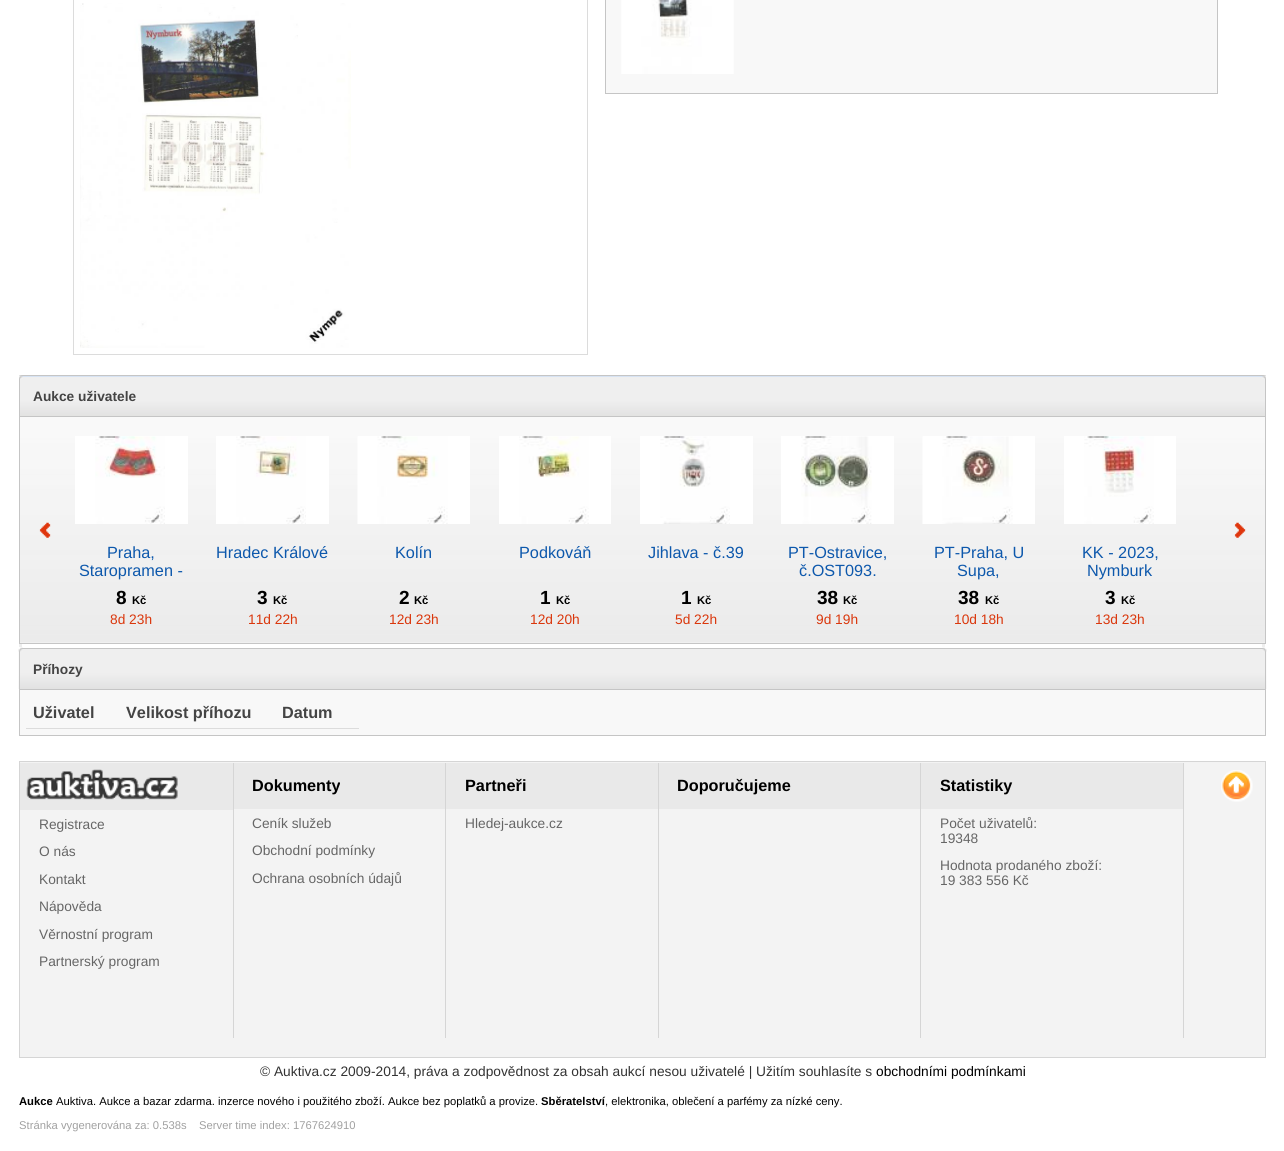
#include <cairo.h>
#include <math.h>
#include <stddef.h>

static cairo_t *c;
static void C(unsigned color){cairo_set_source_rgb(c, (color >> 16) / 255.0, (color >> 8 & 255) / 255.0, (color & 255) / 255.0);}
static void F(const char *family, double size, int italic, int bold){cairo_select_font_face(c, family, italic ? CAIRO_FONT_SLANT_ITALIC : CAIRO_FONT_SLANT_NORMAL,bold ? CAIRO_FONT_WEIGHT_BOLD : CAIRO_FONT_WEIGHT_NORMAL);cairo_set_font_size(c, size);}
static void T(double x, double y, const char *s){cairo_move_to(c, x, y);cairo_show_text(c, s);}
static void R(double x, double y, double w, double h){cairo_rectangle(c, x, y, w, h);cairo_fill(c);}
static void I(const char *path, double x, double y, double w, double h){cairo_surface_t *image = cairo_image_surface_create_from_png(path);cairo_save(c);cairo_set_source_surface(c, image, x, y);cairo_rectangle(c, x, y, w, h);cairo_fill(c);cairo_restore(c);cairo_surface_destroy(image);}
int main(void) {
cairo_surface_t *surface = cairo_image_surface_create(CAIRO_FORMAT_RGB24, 1284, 1151);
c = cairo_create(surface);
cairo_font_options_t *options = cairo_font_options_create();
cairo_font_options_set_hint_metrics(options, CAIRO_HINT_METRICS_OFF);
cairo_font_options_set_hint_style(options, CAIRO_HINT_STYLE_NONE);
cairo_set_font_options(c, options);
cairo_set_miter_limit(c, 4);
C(0xffffff);
cairo_paint(c);
cairo_rectangle(c,73.5,-.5,514,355);
C(0xdcdcdc);
cairo_set_line_width(c,1);
cairo_stroke(c);
I("1.png",80,3,271,345);
C(0xf8f8f8);
cairo_rectangle(c,605.5,-.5,612,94);
cairo_fill_preserve(c);
C(0xc5c5c5);
cairo_stroke(c);
I("2.png",621,0,113,74);
C(0xbfd7f6);
R(22,376,1241,1);
I("5.png",20,376,1245,40);
C(0xc5c5c5);
R(19,375,1247,1);
R(19,375,1,41);
I("3.png",19,375,4,4);
R(1265,375,1,41);
I("4.png",1262,375,4,4);
F("Liberation Sans",13.75,0,1);
C(0x444444);
T(33,401,"Aukce uživatele");
I("6.png",20,417,1245,226);
cairo_rectangle(c,19.5,416.5,1246,227);
C(0xc5c5c5);
cairo_stroke(c);
I("7.png",39,522,12,16);
I("8.png",1234,522,12,16);
C(0xffffff);
R(75,436,113,88);
I("9.png",95,436,70,88);
I("10.png",99,436,35,1);
F("Liberation Sans",16.25,0,0);
C(0x0d58ac);
T(107,558,"Praha,");
T(79,576,"Staropramen -");
F("Liberation Sans",19,0,1);
C(0x000000);
T(116,604,"8");
F("Liberation Sans",11.25,0,1);
T(132,604,"Kč");
F("Liberation Sans",13.75,0,0);
C(0xda370c);
T(110,624,"8d 23h");
C(0xffffff);
R(216,436,113,88);
I("11.png",236,436,70,88);
I("12.png",240,436,21,1);
F("Liberation Sans",16.25,0,0);
C(0x0d58ac);
T(216,558,"Hradec Králové");
F("Liberation Sans",19,0,1);
C(0x000000);
T(257,604,"3");
F("Liberation Sans",11.25,0,1);
T(273,604,"Kč");
F("Liberation Sans",13.75,0,0);
C(0xda370c);
T(248,624,"11d 22h");
C(0xffffff);
R(358,436,112,88);
I("13.png",357,436,91,88);
I("14.png",381,436,21,1);
F("Liberation Sans",16.25,0,0);
C(0x0d58ac);
T(395,558,"Kolín");
F("Liberation Sans",19,0,1);
C(0x000000);
T(399,604,"2");
F("Liberation Sans",11.25,0,1);
T(414,604,"Kč");
F("Liberation Sans",13.75,0,0);
C(0xda370c);
T(389,624,"12d 23h");
C(0xffffff);
R(499,436,112,88);
I("15.png",519,436,70,88);
I("16.png",522,436,21,1);
F("Liberation Sans",16.25,0,0);
C(0x0d58ac);
T(519,558,"Podkováň");
F("Liberation Sans",19,0,1);
C(0x000000);
T(540,604,"1");
F("Liberation Sans",11.25,0,1);
T(556,604,"Kč");
F("Liberation Sans",13.75,0,0);
C(0xda370c);
T(530,624,"12d 20h");
C(0xffffff);
R(640,436,113,88);
I("17.png",660,436,70,88);
I("18.png",664,436,21,1);
F("Liberation Sans",16.25,0,0);
C(0x0d58ac);
T(648,558,"Jihlava - č.39");
F("Liberation Sans",19,0,1);
C(0x000000);
T(681,604,"1");
F("Liberation Sans",11.25,0,1);
T(697,604,"Kč");
F("Liberation Sans",13.75,0,0);
C(0xda370c);
T(675,624,"5d 22h");
C(0xffffff);
R(781,436,113,88);
I("19.png",801,436,71,88);
I("20.png",805,436,21,1);
F("Liberation Sans",16.25,0,0);
C(0x0d58ac);
T(788,558,"PT-Ostravice,");
T(799,576,"č.OST093.");
F("Liberation Sans",19,0,1);
C(0x000000);
T(817,604,"38");
F("Liberation Sans",11.25,0,1);
T(843,604,"Kč");
F("Liberation Sans",13.75,0,0);
C(0xda370c);
T(816,624,"9d 19h");
C(0xffffff);
R(923,436,112,88);
I("21.png",922,436,91,88);
I("22.png",946,436,22,1);
F("Liberation Sans",16.25,0,0);
C(0x0d58ac);
T(934,558,"PT-Praha, U");
T(957,576,"Supa,");
F("Liberation Sans",19,0,1);
C(0x000000);
T(958,604,"38");
F("Liberation Sans",11.25,0,1);
T(985,604,"Kč");
F("Liberation Sans",13.75,0,0);
C(0xda370c);
T(954,624,"10d 18h");
C(0xffffff);
R(1064,436,112,88);
I("23.png",1084,436,70,88);
I("24.png",1087,436,22,1);
F("Liberation Sans",16.25,0,0);
C(0x0d58ac);
T(1082,558,"KK - 2023,");
T(1087,576,"Nymburk");
F("Liberation Sans",19,0,1);
C(0x000000);
T(1105,604,"3");
F("Liberation Sans",11.25,0,1);
T(1121,604,"Kč");
F("Liberation Sans",13.75,0,0);
C(0xda370c);
T(1095,624,"13d 23h");
C(0xededed);
R(19,644,3,3);
C(0xeeeeee);
R(1262,644,3,3);
I("27.png",18,649,1249,40);
C(0xc5c5c5);
R(19,648,1247,1);
R(19,648,1,41);
I("25.png",18,647,5,5);
R(1265,648,1,41);
I("26.png",1262,647,5,5);
F("Liberation Sans",13.75,0,1);
C(0x444444);
T(33,674,"Příhozy");
C(0xf8f8f8);
cairo_rectangle(c,19.5,689.5,1246,46);
cairo_fill_preserve(c);
C(0xc5c5c5);
cairo_stroke(c);
F("Liberation Sans",16.25,0,1);
C(0x444444);
T(33,718,"Uživatel");
T(126,718,"Velikost příhozu");
C(0xdcdcdc);
R(26,728,333,1);
C(0x444444);
T(282,718,"Datum");
C(0xf3f3f3);
cairo_rectangle(c,19.5,761.5,1246,296);
cairo_fill_preserve(c);
C(0xd5d5d5);
cairo_stroke(c);
R(233,763,1,275);
C(0xe9e9e9);
R(20,763,213,47);
I("28.png",26,769,152,31);
F("Liberation Sans",13.75,0,0);
C(0x666666);
T(39,829,"Registrace");
T(39,856,"O nás");
T(39,884,"Kontakt");
T(39,911,"Nápověda");
T(39,939,"Věrnostní program");
T(39,966,"Partnerský program");
C(0xd5d5d5);
R(445,763,1,275);
C(0xe9e9e9);
R(234,763,211,46);
F("Liberation Sans",16.25,0,1);
C(0x000000);
T(252,791,"Dokumenty");
F("Liberation Sans",13.75,0,0);
C(0x666666);
T(252,828,"Ceník služeb");
T(252,855,"Obchodní podmínky");
T(252,883,"Ochrana osobních údajů");
C(0xd5d5d5);
R(658,763,1,275);
C(0xe9e9e9);
R(446,763,212,46);
F("Liberation Sans",16.25,0,1);
C(0x000000);
T(465,791,"Partneři");
F("Liberation Sans",13.75,0,0);
C(0x666666);
T(465,828,"Hledej-aukce.cz");
C(0xd5d5d5);
R(920,763,1,275);
C(0xe9e9e9);
R(659,763,261,46);
F("Liberation Sans",16.25,0,1);
C(0x000000);
T(677,791,"Doporučujeme");
C(0xd5d5d5);
R(1183,763,1,275);
C(0xe9e9e9);
R(921,763,262,46);
C(0x000000);
T(940,791,"Statistiky");
F("Liberation Sans",13.75,0,0);
C(0x666666);
T(940,828,"Počet uživatelů:");
T(940,843,"19348");
T(940,870,"Hodnota prodaného zboží:");
T(940,885,"19 383 556 Kč");
I("29.png",1221,770,32,32);
C(0x333333);
T(260,1076,"© Auktiva.cz 2009-2014, práva a zodpovědnost za obsah aukcí nesou uživatelé | Užitím souhlasíte s");
C(0x000000);
T(876,1076,"obchodními podmínkami");
F("Liberation Sans",11.25,0,1);
T(19,1105,"Aukce");
F("Liberation Sans",11.25,0,0);
T(56,1105,"Auktiva. Aukce a bazar zdarma. inzerce nového i použitého zboží. Aukce bez poplatků a provize.");
F("Liberation Sans",11.25,0,1);
T(541,1105,"Sběratelství");
F("Liberation Sans",11.25,0,0);
T(605,1105,", elektronika, oblečení a parfémy za nízké ceny.");
C(0xa1a1a1);
T(19,1129,"Stránka vygenerována za: 0.538s    Server time index: 1767624910");
cairo_surface_write_to_png(surface, "o.png");
cairo_font_options_destroy(options);
cairo_destroy(c);
cairo_surface_destroy(surface);
return 0;
}
